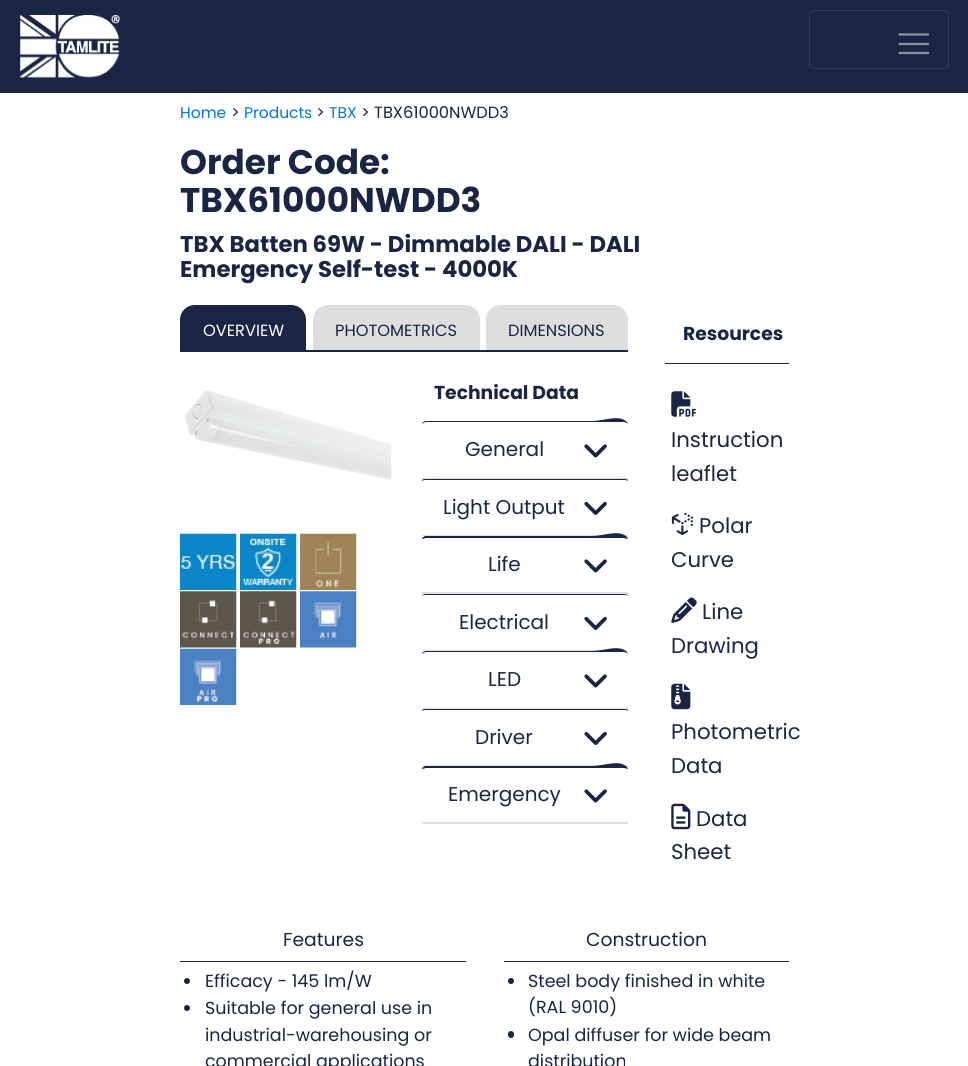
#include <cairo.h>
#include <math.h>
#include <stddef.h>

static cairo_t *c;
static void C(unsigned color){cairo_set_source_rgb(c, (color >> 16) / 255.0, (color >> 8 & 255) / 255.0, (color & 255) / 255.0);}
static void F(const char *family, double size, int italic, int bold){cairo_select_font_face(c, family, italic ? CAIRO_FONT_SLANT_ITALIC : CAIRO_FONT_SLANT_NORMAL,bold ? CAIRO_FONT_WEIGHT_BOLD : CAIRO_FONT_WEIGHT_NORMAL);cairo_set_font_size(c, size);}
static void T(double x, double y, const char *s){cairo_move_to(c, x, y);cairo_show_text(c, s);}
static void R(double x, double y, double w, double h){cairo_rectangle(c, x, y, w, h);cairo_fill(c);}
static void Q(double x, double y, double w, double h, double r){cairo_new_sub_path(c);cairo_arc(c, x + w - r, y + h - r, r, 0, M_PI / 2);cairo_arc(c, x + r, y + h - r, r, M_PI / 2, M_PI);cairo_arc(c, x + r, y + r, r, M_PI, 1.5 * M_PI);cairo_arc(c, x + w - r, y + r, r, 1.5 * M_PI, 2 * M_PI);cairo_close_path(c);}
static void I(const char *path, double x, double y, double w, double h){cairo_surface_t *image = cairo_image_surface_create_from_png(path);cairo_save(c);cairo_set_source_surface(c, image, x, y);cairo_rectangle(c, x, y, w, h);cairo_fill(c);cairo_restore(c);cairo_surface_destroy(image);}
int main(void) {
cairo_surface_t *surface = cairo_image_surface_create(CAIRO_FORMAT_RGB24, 968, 1066);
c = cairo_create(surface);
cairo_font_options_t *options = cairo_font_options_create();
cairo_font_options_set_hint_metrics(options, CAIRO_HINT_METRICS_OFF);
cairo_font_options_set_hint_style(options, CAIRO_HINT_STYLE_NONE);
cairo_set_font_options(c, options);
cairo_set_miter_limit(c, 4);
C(0xffffff);
cairo_paint(c);
C(0x192542);
R(0,0,968,93);
I("1.png",20,15,100,63);
Q(809.5,10.5,139,58,4.5);
C(0x303b55);
cairo_set_line_width(c,1);
cairo_stroke(c);
cairo_new_path(c);
cairo_move_to(c,899.5,34.5);
cairo_line_to(c,928,34.5);
cairo_move_to(c,899.5,44);
cairo_line_to(c,928,44);
cairo_move_to(c,899.5,53);
cairo_line_to(c,928,53);
C(0x8c92a1);
cairo_set_line_width(c,2.3);
cairo_set_line_cap(c,CAIRO_LINE_CAP_ROUND);
cairo_stroke(c);
F("Poppins",15.5,0,0);
C(0x0275d8);
T(180,118,"Home");
F("Poppins",16.25,0,0);
C(0x192542);
T(231,118,">");
F("Poppins",15.5,0,0);
C(0x0275d8);
T(244,118,"Products");
F("Poppins",16.25,0,0);
C(0x192542);
T(316,118,">");
F("Poppins",15.5,0,0);
C(0x0275d8);
T(329,118,"TBX");
F("Poppins",16.25,0,0);
C(0x192542);
T(361,118,"> TBX61000NWDD3");
F("Poppins",34.25,0,1);
T(180,174,"Order Code:");
T(180,212,"TBX61000NWDD3");
F("Poppins",22.75,0,1);
T(180,252,"TBX Batten 69W - Dimmable DALI - DALI");
T(180,277,"Emergency Self-test - 4000K");
R(180,350,448,2);
cairo_new_path(c);
cairo_move_to(c,195,305);
cairo_line_to(c,291,305);
cairo_curve_to(c,299.5,305,306,311.5,306,320);
cairo_line_to(c,306,350);
cairo_line_to(c,180,350);
cairo_line_to(c,180,320);
cairo_curve_to(c,180,311.5,186.5,305,195,305);
cairo_close_path(c);
cairo_fill(c);
F("Poppins",16.25,0,0);
C(0xffffff);
T(203,336,"OVERVIEW");
C(0xdedede);
cairo_new_path(c);
cairo_move_to(c,328,305);
cairo_line_to(c,465,305);
cairo_curve_to(c,473.5,305,480,311.5,480,320);
cairo_line_to(c,480,350);
cairo_line_to(c,313,350);
cairo_line_to(c,313,320);
cairo_curve_to(c,313,311.5,319.5,305,328,305);
cairo_close_path(c);
cairo_fill(c);
C(0x192542);
T(335,336,"PHOTOMETRICS");
C(0xdedede);
cairo_new_path(c);
cairo_move_to(c,501,305);
cairo_line_to(c,613,305);
cairo_curve_to(c,621.5,305,628,311.5,628,320);
cairo_line_to(c,628,350);
cairo_line_to(c,486,350);
cairo_line_to(c,486,320);
cairo_curve_to(c,486,311.5,492.5,305,501,305);
cairo_close_path(c);
cairo_fill(c);
C(0x192542);
T(508,336,"DIMENSIONS");
I("2.png",184,390,208,90);
I("3.png",180,533,57,57);
I("4.png",240,533,57,57);
I("5.png",300,533,57,57);
I("6.png",180,591,57,57);
I("7.png",240,591,57,57);
I("8.png",300,591,57,57);
I("9.png",180,648,57,57);
F("Poppins",18.75,0,1);
T(434,399,"Technical Data");
cairo_new_path(c);
cairo_move_to(c,426,422);
cairo_curve_to(c,425,422,423,423,422,424);
cairo_line_to(c,422,423);
cairo_line_to(c,425,421);
cairo_line_to(c,592,421);
cairo_curve_to(c,604,421,619,414,627,422);
cairo_line_to(c,628,424);
cairo_curve_to(c,627,423,625,422,624,422);
cairo_close_path(c);
cairo_fill(c);
C(0xdfdfdf);
R(422,478,206,1);
F("Poppins",20,0,0);
C(0x192542);
T(465,456,"General");
I("10.png",584,444,23,14);
cairo_new_path(c);
cairo_move_to(c,426,479);
cairo_line_to(c,624,479);
cairo_curve_to(c,625,479,627,479,628,480);
cairo_line_to(c,628,481);
cairo_curve_to(c,627,480,625,480,624,480);
cairo_line_to(c,426,480);
cairo_curve_to(c,425,480,423,480,422,481);
cairo_line_to(c,422,480);
cairo_curve_to(c,423,479,425,479,426,479);
cairo_close_path(c);
cairo_fill(c);
C(0xdfdfdf);
R(422,535,206,1);
C(0x192542);
T(443,514,"Light Output");
I("11.png",584,501,23,14);
cairo_new_path(c);
cairo_move_to(c,426,538);
cairo_line_to(c,422,539);
cairo_line_to(c,422,538);
cairo_line_to(c,425,536);
cairo_line_to(c,592,536);
cairo_curve_to(c,604,536,619,529,627,537);
cairo_line_to(c,628,539);
cairo_line_to(c,624,538);
cairo_close_path(c);
cairo_fill(c);
C(0xdfdfdf);
R(422,592,206,2);
C(0x192542);
T(488,571,"Life");
I("10.png",584,559,23,14);
cairo_new_path(c);
cairo_move_to(c,426,594);
cairo_line_to(c,624,594);
cairo_curve_to(c,626,594,628,595,628,596);
cairo_line_to(c,626,595);
cairo_line_to(c,426,595);
cairo_curve_to(c,425,595,423,595,422,596);
cairo_curve_to(c,422,595,424,594,426,594);
cairo_close_path(c);
cairo_fill(c);
C(0xdfdfdf);
R(422,650,206,1);
C(0x192542);
T(459,629,"Electrical");
I("11.png",584,616,23,14);
cairo_new_path(c);
cairo_move_to(c,426,652);
cairo_curve_to(c,425,652,423,653,422,654);
cairo_line_to(c,422,653);
cairo_line_to(c,425,651);
cairo_line_to(c,592,651);
cairo_curve_to(c,604,651,619,644,627,652);
cairo_line_to(c,628,654);
cairo_curve_to(c,627,653,625,652,624,652);
cairo_close_path(c);
cairo_fill(c);
C(0xdfdfdf);
R(422,708,206,1);
C(0x192542);
T(488,686,"LED");
I("10.png",584,674,23,14);
cairo_new_path(c);
cairo_move_to(c,426,709);
cairo_line_to(c,624,709);
cairo_curve_to(c,625,709,627,709,628,710);
cairo_line_to(c,628,711);
cairo_curve_to(c,627,710,625,710,624,710);
cairo_line_to(c,426,710);
cairo_curve_to(c,425,710,423,710,422,711);
cairo_line_to(c,422,710);
cairo_curve_to(c,423,709,425,709,426,709);
cairo_close_path(c);
cairo_fill(c);
C(0xdfdfdf);
R(422,765,206,1);
C(0x192542);
T(475,744,"Driver");
I("11.png",584,731,23,14);
cairo_new_path(c);
cairo_move_to(c,426,768);
cairo_line_to(c,422,769);
cairo_line_to(c,422,768);
cairo_line_to(c,425,766);
cairo_line_to(c,592,766);
cairo_curve_to(c,604,766,619,759,627,767);
cairo_line_to(c,628,769);
cairo_line_to(c,624,768);
cairo_close_path(c);
cairo_fill(c);
C(0xdfdfdf);
R(422,822,206,2);
C(0x192542);
T(448,801,"Emergency");
I("10.png",584,789,23,14);
R(665,363,124,1);
F("Poppins",18.75,0,1);
T(683,340,"Resources");
I("12.png",671,391,25,26);
F("Poppins",21.25,0,0);
T(671,447,"Instruction");
T(671,481,"leaflet");
I("13.png",671,512,22,24);
T(699,533,"Polar");
T(671,567,"Curve");
I("14.png",671,597,26,26);
T(702,619,"Line");
T(671,653,"Drawing");
I("15.png",671,683,20,27);
T(671,739,"Photometric");
T(671,773,"Data");
I("16.png",671,803,20,27);
T(696,826,"Data");
T(671,859,"Sheet");
R(180,961,286,1);
F("Poppins",18.75,0,0);
T(283,946,"Features");
cairo_new_path(c);
cairo_arc(c,187,981,3,0,2 * M_PI);
cairo_fill(c);
F("Poppins",17.5,0,0);
T(205,987,"Efficacy - 145 lm/W");
cairo_new_path(c);
cairo_arc(c,187,1008,3,0,2 * M_PI);
cairo_fill(c);
T(205,1014,"Suitable for general use in");
T(205,1041,"industrial-warehousing or");
T(205,1067,"commercial applications");
R(504,961,285,1);
F("Poppins",18.75,0,0);
T(586,946,"Construction");
cairo_new_path(c);
cairo_arc(c,511,981,3,0,2 * M_PI);
cairo_fill(c);
F("Poppins",17.5,0,0);
T(528,987,"Steel body finished in white");
T(528,1013,"(RAL 9010)");
Q(508,1031,6,7,3);
cairo_fill(c);
T(528,1041,"Opal diffuser for wide beam");
T(528,1067,"distribution");
cairo_surface_write_to_png(surface, "o.png");
cairo_font_options_destroy(options);
cairo_destroy(c);
cairo_surface_destroy(surface);
return 0;
}
